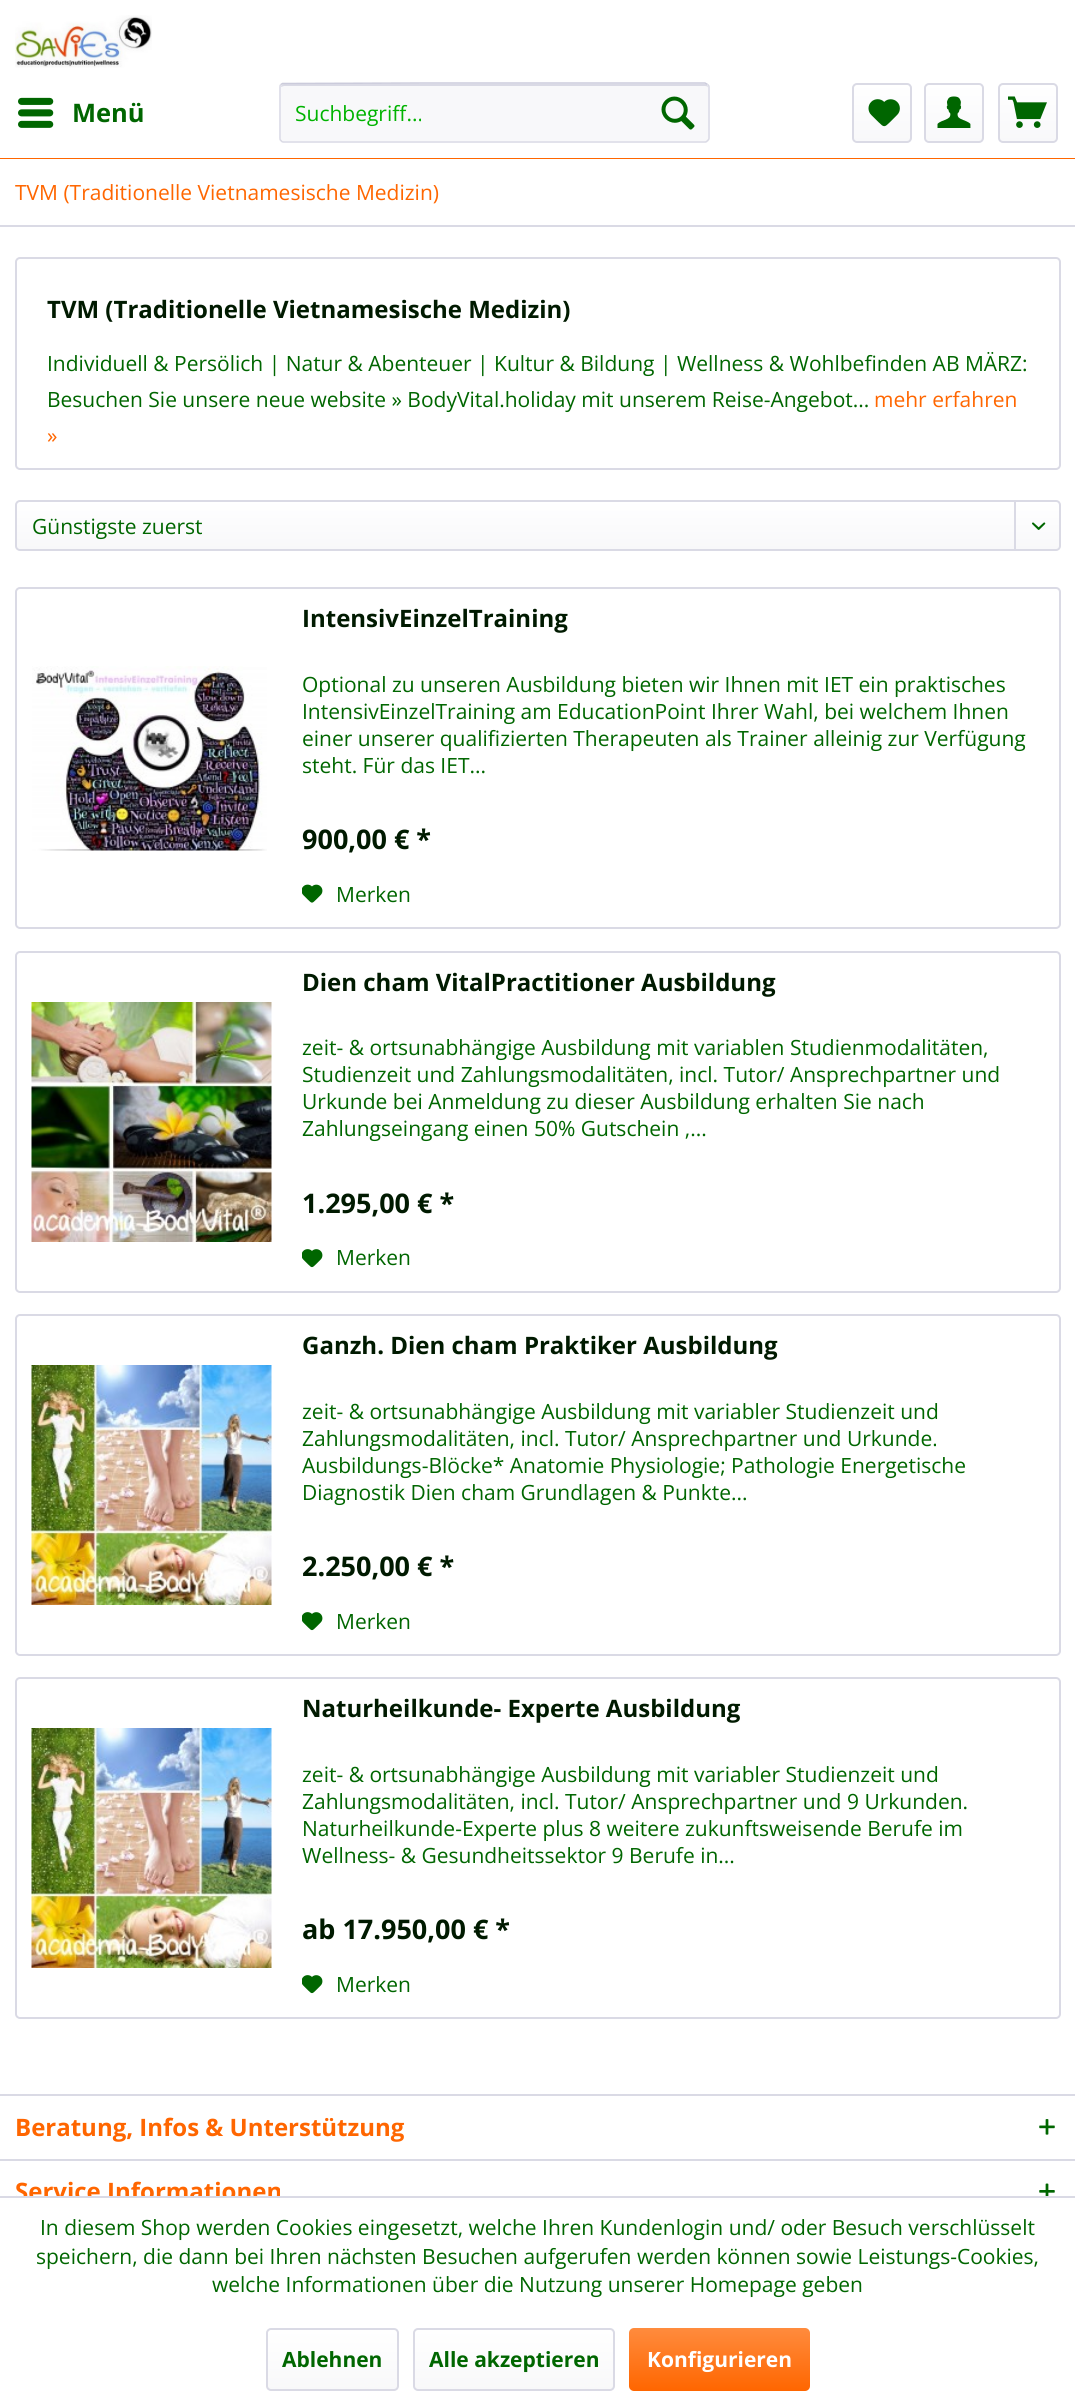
#include <cairo.h>
#include <math.h>
#include <stddef.h>

static cairo_t *c;
static void C(unsigned color){cairo_set_source_rgb(c, (color >> 16) / 255.0, (color >> 8 & 255) / 255.0, (color & 255) / 255.0);}
static void F(const char *family, double size, int italic, int bold){cairo_select_font_face(c, family, italic ? CAIRO_FONT_SLANT_ITALIC : CAIRO_FONT_SLANT_NORMAL,bold ? CAIRO_FONT_WEIGHT_BOLD : CAIRO_FONT_WEIGHT_NORMAL);cairo_set_font_size(c, size);}
static void T(double x, double y, const char *s){cairo_move_to(c, x, y);cairo_show_text(c, s);}
static void R(double x, double y, double w, double h){cairo_rectangle(c, x, y, w, h);cairo_fill(c);}
static void Q(double x, double y, double w, double h, double r){cairo_new_sub_path(c);cairo_arc(c, x + w - r, y + h - r, r, 0, M_PI / 2);cairo_arc(c, x + r, y + h - r, r, M_PI / 2, M_PI);cairo_arc(c, x + r, y + r, r, M_PI, 1.5 * M_PI);cairo_arc(c, x + w - r, y + r, r, 1.5 * M_PI, 2 * M_PI);cairo_close_path(c);}
static void I(const char *path, double x, double y, double w, double h){cairo_surface_t *image = cairo_image_surface_create_from_png(path);cairo_save(c);cairo_set_source_surface(c, image, x, y);cairo_rectangle(c, x, y, w, h);cairo_fill(c);cairo_restore(c);cairo_surface_destroy(image);}
int main(void) {
cairo_surface_t *surface = cairo_image_surface_create(CAIRO_FORMAT_RGB24, 1075, 2405);
c = cairo_create(surface);
cairo_font_options_t *options = cairo_font_options_create();
cairo_font_options_set_hint_metrics(options, CAIRO_HINT_METRICS_OFF);
cairo_font_options_set_hint_style(options, CAIRO_HINT_STYLE_NONE);
cairo_set_font_options(c, options);
cairo_set_miter_limit(c, 4);
cairo_pattern_t *gradient;
C(0xffffff);
cairo_paint(c);
C(0xff6600);
R(0,158,1075,1);
I("1.png",15,15,137,53);
I("2.png",18,97,36,31);
F("Open Sans",25.5,0,1);
C(0x006600);
T(72,122,"Menü");
C(0xf8f8fa);
Q(279,83,431,60,5);
cairo_fill(c);
C(0xdadae5);
cairo_new_path(c);
cairo_move_to(c,284,86);
cairo_line_to(c,705,86);
cairo_curve_to(c,707,86,708,87,708,88);
cairo_curve_to(c,708,86,707,84,705,84);
cairo_line_to(c,284,84);
cairo_curve_to(c,282,84,281,85,281,87);
cairo_close_path(c);
cairo_fill(c);
cairo_new_path(c);
cairo_move_to(c,281,84.5);
cairo_line_to(c,282.5,83.5);
cairo_line_to(c,424,83);
cairo_line_to(c,705,83);
cairo_line_to(c,707.5,84.5);
C(0xcbcbdb);
cairo_set_line_width(c,1.5);
cairo_stroke(c);
cairo_new_path(c);
cairo_move_to(c,707.5,84.5);
cairo_curve_to(c,708.5,85,709,86,709,87);
cairo_line_to(c,709,138);
cairo_curve_to(c,709,139,708.5,140,707.5,140.5);
cairo_curve_to(c,707,141.5,706,142,705,142);
cairo_line_to(c,283.5,142);
cairo_curve_to(c,282.5,142,281.5,141.5,281,140.5);
cairo_curve_to(c,280,140,280,139,280,138);
cairo_line_to(c,280,87);
cairo_curve_to(c,280,86,280,85,281,84.5);
C(0xdadae5);
cairo_stroke(c);
F("Open Sans",21,0,0);
C(0x00b300);
T(295,121,"Suchbegriff...");
I("3.png",661,96,34,34);
gradient = cairo_pattern_create_linear(882,84,882,141);
cairo_pattern_add_color_stop_rgba(gradient,0,1,1,1,1);
cairo_pattern_add_color_stop_rgba(gradient,1,0.973,0.973,0.98,1);
cairo_set_source(c,gradient);
cairo_pattern_destroy(gradient);
Q(854,84,57,57,3);
cairo_fill(c);
Q(853,84,58,58,4);
C(0xdadae5);
cairo_set_line_width(c,2);
cairo_stroke(c);
I("4.png",868,99,32,28);
gradient = cairo_pattern_create_linear(954,84,954,141);
cairo_pattern_add_color_stop_rgba(gradient,0,1,1,1,1);
cairo_pattern_add_color_stop_rgba(gradient,1,0.973,0.973,0.98,1);
cairo_set_source(c,gradient);
cairo_pattern_destroy(gradient);
Q(926,84,57,57,3);
cairo_fill(c);
Q(925,84,58,58,4);
C(0xdadae5);
cairo_stroke(c);
I("5.png",937,96,34,32);
gradient = cairo_pattern_create_linear(1028,84,1028,141);
cairo_pattern_add_color_stop_rgba(gradient,0,1,1,1,1);
cairo_pattern_add_color_stop_rgba(gradient,1,0.973,0.973,0.98,1);
cairo_set_source(c,gradient);
cairo_pattern_destroy(gradient);
Q(999,84,57,57,3);
cairo_fill(c);
Q(999,84,58,58,4);
C(0xdadae5);
cairo_stroke(c);
I("6.png",1008,96,39,32);
R(0,225,1075,2);
C(0xff6600);
T(15,200,"TVM (Traditionelle Vietnamesische Medizin)");
Q(16,258,1044,211,4);
C(0xdadae5);
cairo_stroke(c);
F("Open Sans",24,0,1);
C(0x001a00);
T(47,318,"TVM (Traditionelle Vietnamesische Medizin)");
F("Open Sans",21,0,0);
C(0x006600);
T(47,371,"Individuell & Persölich | Natur & Abenteuer | Kultur & Bildung | Wellness & Wohlbefinden AB MÄRZ:");
T(47,407,"Besuchen Sie unsere neue website » BodyVital.holiday mit unserem Reise-Angebot...");
C(0xff6600);
T(874,407,"mehr erfahren");
T(47,443,"»");
gradient = cairo_pattern_create_linear(538,501,538,549);
cairo_pattern_add_color_stop_rgba(gradient,0,1,1,1,1);
cairo_pattern_add_color_stop_rgba(gradient,1,0.973,0.973,0.98,1);
cairo_set_source(c,gradient);
cairo_pattern_destroy(gradient);
Q(17,501,1042,48,3);
cairo_fill(c);
Q(16,501,1044,49,4);
C(0xdadae5);
cairo_stroke(c);
C(0x006600);
T(32,534,"Günstigste zuerst");
C(0xdadae5);
R(1014,501,2,50);
I("7.png",1032,522,14,8);
Q(16,588,1044,340,4);
cairo_stroke(c);
F("Open Sans",24,0,1);
C(0x001a00);
T(302,627,"IntensivEinzelTraining");
I("8.png",32,666,235,185);
F("Open Sans",21,0,0);
C(0x006600);
T(302,692,"Optional zu unseren Ausbildung bieten wir Ihnen mit IET ein praktisches");
T(302,719,"IntensivEinzelTraining am EducationPoint Ihrer Wahl, bei welchem Ihnen");
T(302,746,"einer unserer qualifizierten Therapeuten als Trainer alleinig zur Verfügung");
T(302,773,"steht. Für das IET...");
F("Open Sans",27,0,1);
C(0x001a00);
T(302,849,"900,00 € *");
I("9.png",302,884,21,19);
F("Open Sans",21,0,0);
C(0x006600);
T(336,902,"Merken");
Q(16,952,1044,340,4);
C(0xdadae5);
cairo_stroke(c);
F("Open Sans",24,0,1);
C(0x001a00);
T(302,991,"Dien cham VitalPractitioner Ausbildung");
I("10.png",31,1002,241,240);
F("Open Sans",21,0,0);
C(0x006600);
T(302,1055,"zeit- & ortsunabhängige Ausbildung mit variablen Studienmodalitäten,");
T(302,1082,"Studienzeit und Zahlungsmodalitäten, incl. Tutor/ Ansprechpartner und");
T(302,1109,"Urkunde bei Anmeldung zu dieser Ausbildung erhalten Sie nach");
T(302,1136,"Zahlungseingang einen 50% Gutschein ,...");
F("Open Sans",27,0,1);
C(0x001a00);
T(302,1213,"1.295,00 € *");
I("11.png",302,1249,21,19);
F("Open Sans",21,0,0);
C(0x006600);
T(336,1265,"Merken");
Q(16,1315,1044,340,4);
C(0xdadae5);
cairo_stroke(c);
F("Open Sans",24,0,1);
C(0x001a00);
T(302,1354,"Ganzh. Dien cham Praktiker Ausbildung");
I("12.png",31,1365,241,240);
F("Open Sans",21,0,0);
C(0x006600);
T(302,1419,"zeit- & ortsunabhängige Ausbildung mit variabler Studienzeit und");
T(302,1446,"Zahlungsmodalitäten, incl. Tutor/ Ansprechpartner und Urkunde.");
T(302,1473,"Ausbildungs-Blöcke* Anatomie Physiologie; Pathologie Energetische");
T(302,1500,"Diagnostik Dien cham Grundlagen & Punkte...");
F("Open Sans",27,0,1);
C(0x001a00);
T(302,1576,"2.250,00 € *");
I("11.png",302,1612,21,19);
F("Open Sans",21,0,0);
C(0x006600);
T(336,1629,"Merken");
Q(16,1678,1044,340,4);
C(0xdadae5);
cairo_stroke(c);
F("Open Sans",24,0,1);
C(0x001a00);
T(302,1717,"Naturheilkunde- Experte Ausbildung");
I("13.png",31,1728,241,240);
F("Open Sans",21,0,0);
C(0x006600);
T(302,1782,"zeit- & ortsunabhängige Ausbildung mit variabler Studienzeit und");
T(302,1809,"Zahlungsmodalitäten, incl. Tutor/ Ansprechpartner und 9 Urkunden.");
T(302,1836,"Naturheilkunde-Experte plus 8 weitere zukunftsweisende Berufe im");
T(302,1863,"Wellness- & Gesundheitssektor 9 Berufe in...");
F("Open Sans",27,0,1);
C(0x001a00);
T(302,1939,"ab 17.950,00 € *");
I("11.png",302,1975,21,19);
F("Open Sans",21,0,0);
C(0x006600);
T(336,1992,"Merken");
C(0xdadae5);
R(0,2094,1075,2);
F("Open Sans",24,0,1);
C(0xff6600);
T(15,2136,"Beratung, Infos & Unterstützung");
I("14.png",1039,2119,16,16);
C(0xdadae5);
R(0,2159,1075,2);
C(0xff6600);
T(15,2200,"Service Informationen");
I("15.png",1039,2183,16,13);
C(0xffffff);
R(16,2198,265,3);
C(0xdadae5);
R(0,2196,1075,2);
F("Open Sans",21,0,0);
C(0x006600);
T(40,2235,"In diesem Shop werden Cookies eingesetzt, welche Ihren Kundenlogin und/ oder Besuch verschlüsselt");
T(36,2264,"speichern, die dann bei Ihren nächsten Besuchen aufgerufen werden können sowie Leistungs-Cookies,");
T(212,2292,"welche Informationen über die Nutzung unserer Homepage geben");
gradient = cairo_pattern_create_linear(332,2330,332,2390);
cairo_pattern_add_color_stop_rgba(gradient,0,1,1,1,1);
cairo_pattern_add_color_stop_rgba(gradient,1,0.973,0.973,0.98,1);
cairo_set_source(c,gradient);
cairo_pattern_destroy(gradient);
Q(267,2330,131,60,3);
cairo_fill(c);
Q(267,2329,131,61,4);
C(0xdadae5);
cairo_stroke(c);
F("Open Sans",21,0,1);
C(0x006600);
T(282,2367,"Ablehnen");
gradient = cairo_pattern_create_linear(514,2330,514,2390);
cairo_pattern_add_color_stop_rgba(gradient,0,1,1,1,1);
cairo_pattern_add_color_stop_rgba(gradient,1,0.973,0.973,0.98,1);
cairo_set_source(c,gradient);
cairo_pattern_destroy(gradient);
Q(414,2330,200,60,3);
cairo_fill(c);
Q(414,2329,200,61,4);
C(0xdadae5);
cairo_stroke(c);
C(0x006600);
T(429,2367,"Alle akzeptieren");
gradient = cairo_pattern_create_linear(719,2328,719,2391);
cairo_pattern_add_color_stop_rgba(gradient,0,1,0.545,0.239,1);
cairo_pattern_add_color_stop_rgba(gradient,1,1,0.4,0,1);
cairo_set_source(c,gradient);
cairo_pattern_destroy(gradient);
Q(629,2328,181,63,5);
cairo_fill(c);
C(0xffffff);
T(647,2367,"Konfigurieren");
cairo_surface_write_to_png(surface, "o.png");
cairo_font_options_destroy(options);
cairo_destroy(c);
cairo_surface_destroy(surface);
return 0;
}
